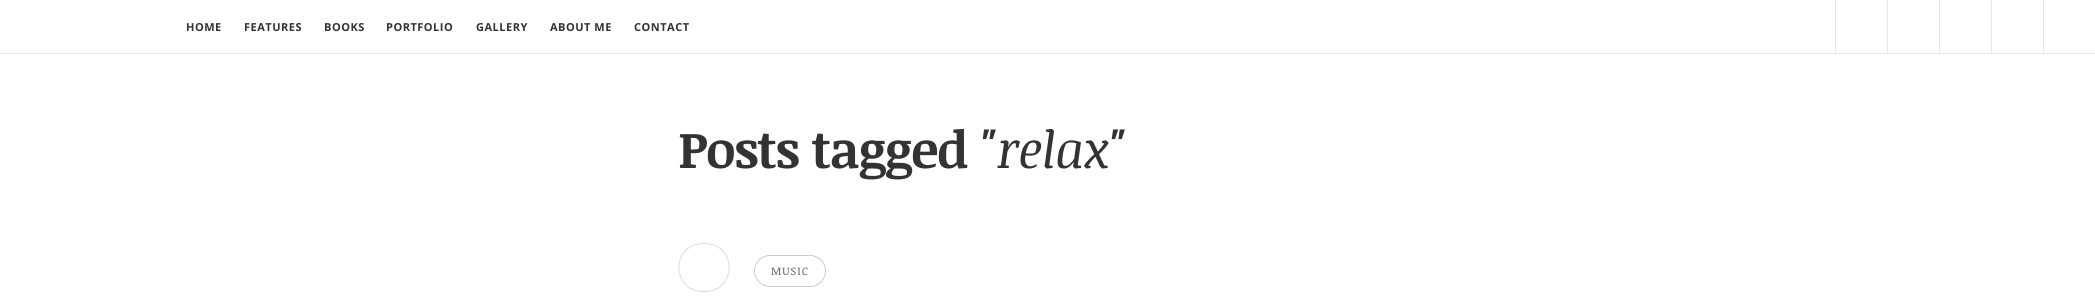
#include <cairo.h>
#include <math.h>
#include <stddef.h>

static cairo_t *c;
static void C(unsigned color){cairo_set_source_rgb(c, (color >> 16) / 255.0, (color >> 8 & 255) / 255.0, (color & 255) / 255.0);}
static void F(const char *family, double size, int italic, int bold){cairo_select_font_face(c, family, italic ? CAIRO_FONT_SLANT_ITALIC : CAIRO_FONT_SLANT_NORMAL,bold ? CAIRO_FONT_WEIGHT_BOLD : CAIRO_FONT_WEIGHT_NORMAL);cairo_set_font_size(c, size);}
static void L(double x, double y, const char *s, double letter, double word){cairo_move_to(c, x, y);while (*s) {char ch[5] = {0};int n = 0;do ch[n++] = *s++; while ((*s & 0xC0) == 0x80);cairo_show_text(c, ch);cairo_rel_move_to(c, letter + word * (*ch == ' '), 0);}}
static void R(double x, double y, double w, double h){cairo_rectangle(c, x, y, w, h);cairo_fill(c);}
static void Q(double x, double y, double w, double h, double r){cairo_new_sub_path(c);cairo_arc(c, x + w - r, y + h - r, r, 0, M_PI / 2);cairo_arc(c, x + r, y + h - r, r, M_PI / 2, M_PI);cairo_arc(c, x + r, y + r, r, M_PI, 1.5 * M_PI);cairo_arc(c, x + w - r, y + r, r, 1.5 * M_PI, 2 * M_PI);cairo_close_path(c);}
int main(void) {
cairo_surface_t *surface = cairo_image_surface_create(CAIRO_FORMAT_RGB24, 2095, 303);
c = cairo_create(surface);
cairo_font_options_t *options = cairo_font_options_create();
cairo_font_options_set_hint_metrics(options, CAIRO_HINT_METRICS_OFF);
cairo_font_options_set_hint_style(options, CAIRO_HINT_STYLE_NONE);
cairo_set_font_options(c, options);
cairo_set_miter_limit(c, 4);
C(0xffffff);
cairo_paint(c);
C(0xe7e7e7);
R(0,53,2095,1);
F("Open Sans",11,0,1);
C(0x333333);
L(186,31,"HOME",.5,0);
L(244,31,"FEATURES",.5,0);
L(324,31,"BOOKS",.5,0);
L(386,31,"PORTFOLIO",.5,0);
L(476,31,"GALLERY",.5,0);
L(550,31,"ABOUT ME",.5,0);
L(634,31,"CONTACT",.5,0);
C(0xe7e7e7);
R(1887,0,1,54);
R(1835,0,1,54);
R(1939,0,1,54);
R(1991,0,1,54);
R(2043,0,1,54);
F("Noticia Text",51.25,0,1);
C(0x333333);
L(678,168,"Posts tagged",-1,0);
F("Noticia Text",51.25,1,0);
L(979,168,"\"relax\"",-1,0);
cairo_new_path(c);
cairo_move_to(c,704,243.5);
cairo_curve_to(c,737.5,243.5,737.5,291.5,704,291.5);
cairo_curve_to(c,670.5,291.5,670.5,243.5,704,243.5);
cairo_close_path(c);
C(0xdddddd);
cairo_set_line_width(c,1);
cairo_stroke(c);
Q(754.5,255.5,71,31,15.5);
C(0xcccccc);
cairo_stroke(c);
F("Noticia Text",11,0,0);
C(0x666666);
L(771,275,"MUSIC",1,0);
cairo_surface_write_to_png(surface, "o.png");
cairo_font_options_destroy(options);
cairo_destroy(c);
cairo_surface_destroy(surface);
return 0;
}
